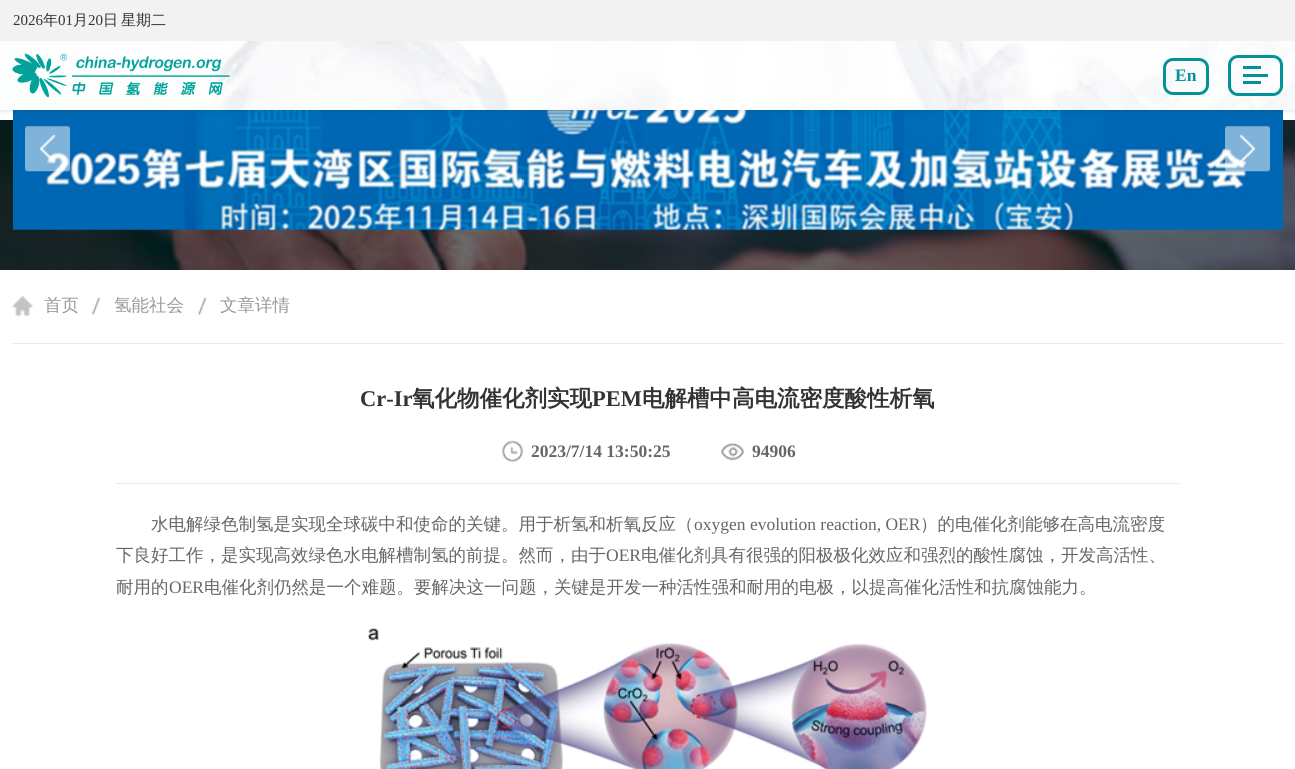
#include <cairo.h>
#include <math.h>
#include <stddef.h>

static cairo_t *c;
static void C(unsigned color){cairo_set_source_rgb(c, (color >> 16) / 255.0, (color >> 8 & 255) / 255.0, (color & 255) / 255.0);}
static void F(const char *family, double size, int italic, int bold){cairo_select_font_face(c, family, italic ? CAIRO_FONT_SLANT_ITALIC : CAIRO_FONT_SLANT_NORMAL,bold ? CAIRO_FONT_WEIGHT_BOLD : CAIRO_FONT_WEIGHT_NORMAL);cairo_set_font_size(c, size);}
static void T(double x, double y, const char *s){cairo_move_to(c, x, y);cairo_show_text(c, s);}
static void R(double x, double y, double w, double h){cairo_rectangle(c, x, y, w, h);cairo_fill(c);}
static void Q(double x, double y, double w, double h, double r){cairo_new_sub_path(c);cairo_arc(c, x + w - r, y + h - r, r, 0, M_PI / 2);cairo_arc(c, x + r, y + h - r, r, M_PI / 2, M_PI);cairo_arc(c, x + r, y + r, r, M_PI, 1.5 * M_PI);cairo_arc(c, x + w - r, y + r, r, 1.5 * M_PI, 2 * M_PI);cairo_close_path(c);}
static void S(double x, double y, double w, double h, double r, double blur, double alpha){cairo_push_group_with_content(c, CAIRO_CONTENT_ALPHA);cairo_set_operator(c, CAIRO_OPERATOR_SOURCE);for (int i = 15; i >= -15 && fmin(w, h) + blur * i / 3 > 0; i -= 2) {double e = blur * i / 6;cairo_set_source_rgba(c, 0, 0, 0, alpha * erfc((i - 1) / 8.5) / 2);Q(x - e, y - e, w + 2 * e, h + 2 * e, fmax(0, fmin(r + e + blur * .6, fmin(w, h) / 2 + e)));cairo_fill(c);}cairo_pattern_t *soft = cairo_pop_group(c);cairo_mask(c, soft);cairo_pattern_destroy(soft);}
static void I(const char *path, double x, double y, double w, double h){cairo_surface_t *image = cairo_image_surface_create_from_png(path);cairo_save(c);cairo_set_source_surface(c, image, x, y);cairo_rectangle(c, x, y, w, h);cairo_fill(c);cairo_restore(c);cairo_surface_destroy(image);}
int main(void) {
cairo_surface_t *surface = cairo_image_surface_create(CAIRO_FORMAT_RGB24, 1295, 769);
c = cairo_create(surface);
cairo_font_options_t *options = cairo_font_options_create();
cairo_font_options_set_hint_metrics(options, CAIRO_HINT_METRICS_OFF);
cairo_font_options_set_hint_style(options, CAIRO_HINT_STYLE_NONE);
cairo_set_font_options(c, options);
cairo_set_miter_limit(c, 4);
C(0xffffff);
cairo_paint(c);
I("6.png",0,120,1295,150);
I("3.png",13,110,1270,120);
C(0x000000);
S(-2,-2,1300,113,0,2.5,.12);
C(0xf2f2f2);
R(0,0,1295,41);
F("Liberation Serif",15,0,0);
C(0x333333);
T(13,25,"2026");
F("WenQuanYi Zen Hei Medium",15,0,0);
T(43,25,"年");
F("Liberation Serif",15,0,0);
T(58,25,"01");
F("WenQuanYi Zen Hei Medium",15,0,0);
T(73,25,"月");
F("Liberation Serif",15,0,0);
T(88,25,"20");
F("WenQuanYi Zen Hei Medium",15,0,0);
T(103,25,"日");
T(121,25,"星期二");
I("1.png",0,41,1295,69);
I("2.png",12,53,218,45);
Q(1164.5,59.5,43,34,8.5);
C(0x029299);
cairo_set_line_width(c,3);
cairo_stroke(c);
F("Liberation Serif",17.5,0,1);
T(1175,81,"En");
Q(1229.5,56.5,52,38,8.5);
cairo_stroke(c);
R(1243,66,18,3);
R(1243,74,25,3);
R(1243,81,18,3);
I("4.png",25,126,45,46);
I("5.png",1225,126,45,46);
I("7.png",12,296,21,21);
C(0xe8e8e8);
R(13,343,1270,1);
F("WenQuanYi Zen Hei Medium",17.5,0,0);
C(0x999999);
T(44,311,"首页");
I("8.png",91,297,9,18);
T(114,311,"氢能社会");
I("9.png",197,297,10,18);
T(220,311,"文章详情");
C(0xe8e8e8);
R(116,483,1063,1);
F("Liberation Serif",22.5,0,1);
C(0x333333);
T(360,406,"Cr-Ir");
F("WenQuanYi Zen Hei",22.5,0,1);
T(412,406,"氧化物催化剂实现");
F("Liberation Serif",22.5,0,1);
T(592,406,"PEM");
F("WenQuanYi Zen Hei",22.5,0,1);
T(642,406,"电解槽中高电流密度酸性析氧");
I("10.png",501,440,23,23);
F("Liberation Serif",17.5,0,1);
C(0x666666);
T(531,457,"2023/7/14 13:50:25");
I("11.png",721,443,23,18);
T(752,457,"94906");
F("WenQuanYi Zen Hei Medium",17.5,0,0);
T(151,530,"水电解绿色制氢是实现全球碳中和使命的关键。用于析氢和析氧反应（");
F("Liberation Serif",17.5,0,0);
T(694,530,"oxygen evolution reaction, OER");
F("WenQuanYi Zen Hei Medium",17.5,0,0);
T(920,530,"）的电催化剂能够在高电流密度");
T(116,561,"下良好工作，是实现高效绿色水电解槽制氢的前提。然而，由于");
F("Liberation Serif",17.5,0,0);
T(606,561,"OER");
F("WenQuanYi Zen Hei Medium",17.5,0,0);
T(641,561,"电催化剂具有很强的阳极极化效应和强烈的酸性腐蚀，开发高活性、");
T(116,593,"耐用的");
F("Liberation Serif",17.5,0,0);
T(169,593,"OER");
F("WenQuanYi Zen Hei Medium",17.5,0,0);
T(204,593,"电催化剂仍然是一个难题。要解决这一问题，关键是开发一种活性强和耐用的电极，以提高催化活性和抗腐蚀能力。");
I("12.png",368,628,559,141);
cairo_surface_write_to_png(surface, "o.png");
cairo_font_options_destroy(options);
cairo_destroy(c);
cairo_surface_destroy(surface);
return 0;
}
